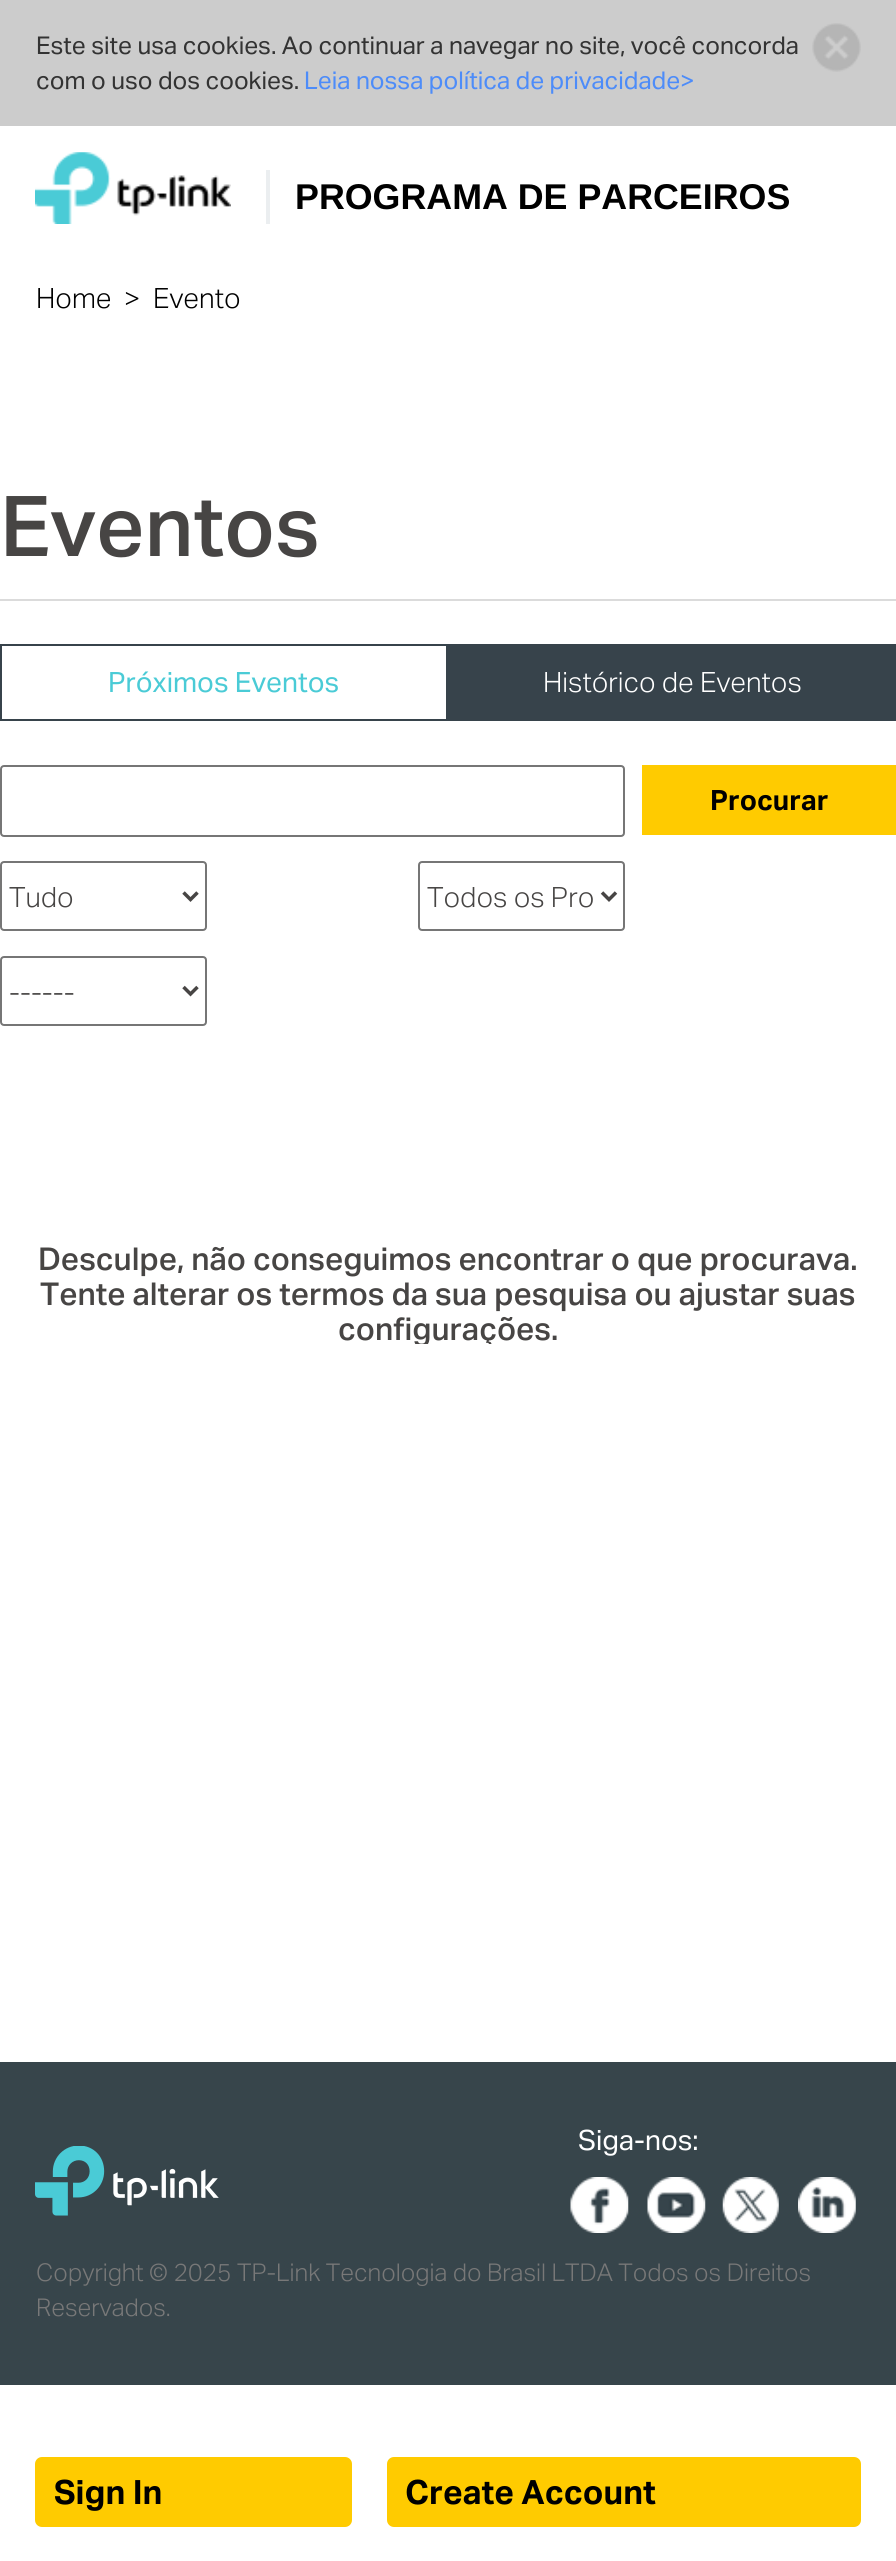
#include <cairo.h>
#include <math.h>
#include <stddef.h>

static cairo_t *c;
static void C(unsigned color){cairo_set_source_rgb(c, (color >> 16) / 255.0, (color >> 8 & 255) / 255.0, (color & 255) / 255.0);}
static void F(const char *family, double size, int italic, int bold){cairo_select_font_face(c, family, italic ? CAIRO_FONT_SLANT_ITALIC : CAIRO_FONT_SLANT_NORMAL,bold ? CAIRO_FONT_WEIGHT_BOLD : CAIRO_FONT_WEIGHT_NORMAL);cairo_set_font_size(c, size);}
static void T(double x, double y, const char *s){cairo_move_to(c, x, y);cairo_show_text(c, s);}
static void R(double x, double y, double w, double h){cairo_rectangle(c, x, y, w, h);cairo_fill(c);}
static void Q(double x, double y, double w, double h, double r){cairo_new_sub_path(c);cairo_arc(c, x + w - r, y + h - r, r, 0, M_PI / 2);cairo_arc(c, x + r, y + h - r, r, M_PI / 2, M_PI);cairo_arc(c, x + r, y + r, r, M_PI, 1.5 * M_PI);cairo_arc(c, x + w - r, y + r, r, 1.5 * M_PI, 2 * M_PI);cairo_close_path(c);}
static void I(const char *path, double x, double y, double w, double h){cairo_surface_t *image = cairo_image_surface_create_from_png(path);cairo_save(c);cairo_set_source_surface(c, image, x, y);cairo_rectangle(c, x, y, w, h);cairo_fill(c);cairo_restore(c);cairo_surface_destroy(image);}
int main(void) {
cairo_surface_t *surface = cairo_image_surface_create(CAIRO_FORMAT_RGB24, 896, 2561);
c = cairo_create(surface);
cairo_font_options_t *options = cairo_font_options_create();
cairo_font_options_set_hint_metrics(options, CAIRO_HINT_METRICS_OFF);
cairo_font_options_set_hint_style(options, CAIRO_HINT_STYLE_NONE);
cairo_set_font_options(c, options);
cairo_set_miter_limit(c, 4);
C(0xffffff);
cairo_paint(c);
C(0xcccccc);
R(0,0,896,126);
F("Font",24.5,0,0);
C(0x333333);
T(36,54,"Este site usa cookies. Ao continuar a navegar no site, você concorda");
I("1.png",812,23,49,49);
T(36,89,"com o uso dos cookies.");
C(0x4d8cf9);
T(304,89,"Leia nossa política de privacidade>");
I("2.png",35,152,196,72);
C(0xebeef0);
R(266,170,4,54);
F("Liberation Sans",35.8,0,1);
C(0x000000);
T(295,209,"PROGRAMA DE PARCEIROS");
C(0xffcb00);
Q(35,2457,317,70,7);
cairo_fill(c);
F("Font",33.5,0,1);
C(0x000000);
T(54,2504,"Sign In");
C(0xffcb00);
Q(387,2457,474,70,7);
cairo_fill(c);
C(0x000000);
T(405,2504,"Create Account");
F("Font Light",28,0,0);
T(36,308,"Home");
T(124,308,">");
T(153,308,"Evento");
C(0xdbdbdb);
R(0,599,896,2);
F("Font Medium",84,0,0);
C(0x474544);
T(0,556,"Eventos");
cairo_rectangle(c,1,645,446,75);
C(0x37434b);
cairo_stroke(c);
F("Font",28,0,0);
C(0x4acbd6);
T(108,692,"Próximos Eventos");
C(0x37434b);
R(448,644,448,77);
F("Font Light",28,0,0);
C(0xffffff);
T(543,692,"Histórico de Eventos");
C(0xffcb00);
R(642,765,254,70);
F("Font",28,0,1);
C(0x000000);
T(710,810,"Procurar");
Q(1,766,623,70,3);
C(0x767676);
cairo_stroke(c);
Q(1,862,205,68,3);
cairo_stroke(c);
cairo_new_path(c);
cairo_move_to(c,183.5,892.5);
cairo_line_to(c,190.5,899.5);
cairo_line_to(c,197.5,892.5);
C(0x474544);
cairo_set_line_width(c,3.5);
cairo_stroke(c);
F("Font Light",28,0,0);
T(9,907,"Tudo");
Q(419,862,205,68,3);
C(0x767676);
cairo_set_line_width(c,2);
cairo_stroke(c);
cairo_new_path(c);
cairo_move_to(c,602,892.5);
cairo_line_to(c,609,899.5);
cairo_line_to(c,616,892.5);
C(0x474544);
cairo_set_line_width(c,3.5);
cairo_stroke(c);
T(427,907,"Todos os Pro");
Q(1,957,205,68,3);
C(0x767676);
cairo_set_line_width(c,2);
cairo_stroke(c);
cairo_new_path(c);
cairo_move_to(c,183.5,987);
cairo_line_to(c,190.5,994);
cairo_line_to(c,197.5,987);
C(0x474544);
cairo_set_line_width(c,3.5);
cairo_stroke(c);
T(9,1002,"------");
F("Font Medium",31.5,0,0);
T(38,1270,"Desculpe, não conseguimos encontrar o que procurava.");
T(40,1305,"Tente alterar os termos da sua pesquisa ou ajustar suas");
cairo_save(c);
cairo_rectangle(c,0,348,896,996);
cairo_clip(c);
T(338,1340,"configurações.");
cairo_restore(c);
C(0x37454b);
R(0,2062,896,323);
F("Font",28,0,0);
C(0xffffff);
T(578,2150,"Siga-nos:");
I("3.png",570,2177,59,56);
I("4.png",647,2177,59,56);
I("5.png",722,2177,57,56);
I("6.png",798,2177,58,56);
I("7.png",35,2146,184,70);
F("Font Light",24.5,0,0);
C(0x787878);
T(36,2281,"Copyright © 2025 TP-Link Tecnologia do Brasil LTDA Todos os Direitos");
T(36,2316,"Reservados.");
cairo_surface_write_to_png(surface, "o.png");
cairo_font_options_destroy(options);
cairo_destroy(c);
cairo_surface_destroy(surface);
return 0;
}
